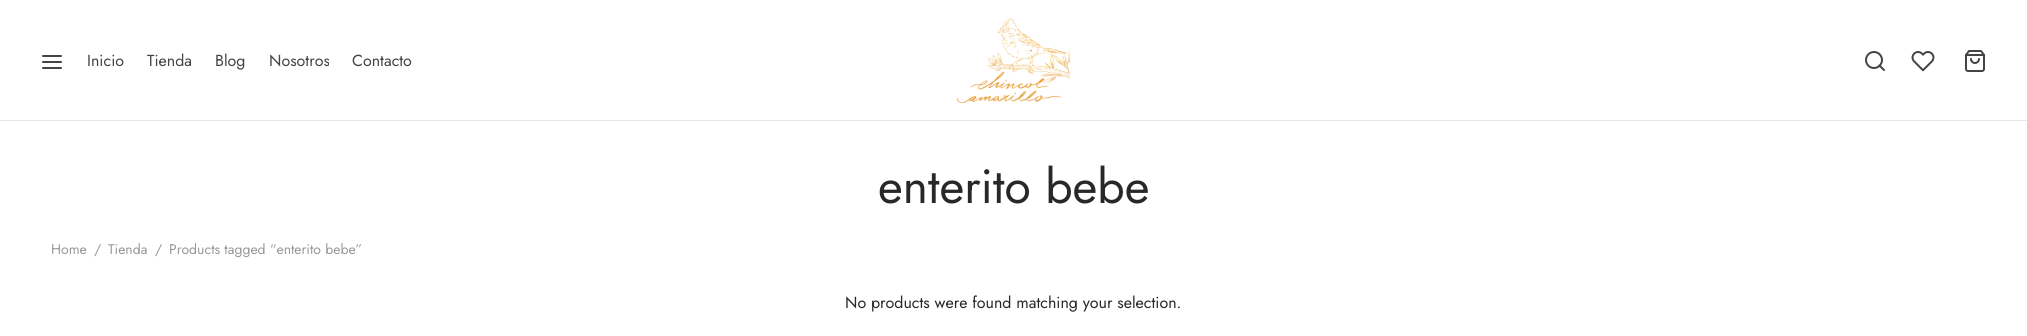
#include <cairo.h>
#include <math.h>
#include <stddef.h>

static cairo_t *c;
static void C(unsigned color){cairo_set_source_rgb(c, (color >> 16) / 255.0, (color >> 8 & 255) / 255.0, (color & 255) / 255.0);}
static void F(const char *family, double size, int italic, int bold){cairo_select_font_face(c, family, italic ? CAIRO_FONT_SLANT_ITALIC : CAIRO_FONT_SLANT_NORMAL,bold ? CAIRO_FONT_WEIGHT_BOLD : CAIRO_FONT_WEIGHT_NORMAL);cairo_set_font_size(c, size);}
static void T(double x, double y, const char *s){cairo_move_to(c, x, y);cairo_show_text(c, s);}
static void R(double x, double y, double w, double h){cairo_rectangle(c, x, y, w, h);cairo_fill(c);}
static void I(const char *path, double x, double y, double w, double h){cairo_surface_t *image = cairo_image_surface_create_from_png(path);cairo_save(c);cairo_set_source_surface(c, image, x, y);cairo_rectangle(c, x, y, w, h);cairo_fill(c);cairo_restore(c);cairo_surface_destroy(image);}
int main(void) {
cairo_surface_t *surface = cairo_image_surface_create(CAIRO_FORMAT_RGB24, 2027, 336);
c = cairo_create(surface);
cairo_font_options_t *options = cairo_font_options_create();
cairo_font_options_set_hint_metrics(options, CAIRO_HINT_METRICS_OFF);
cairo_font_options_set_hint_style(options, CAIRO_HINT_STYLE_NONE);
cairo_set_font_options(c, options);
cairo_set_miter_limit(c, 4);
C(0xffffff);
cairo_paint(c);
cairo_new_path(c);
cairo_move_to(c,43,62);
cairo_line_to(c,61,62);
cairo_move_to(c,43,56);
cairo_line_to(c,61,56);
cairo_move_to(c,43,68);
cairo_line_to(c,61,68);
C(0x444444);
cairo_set_line_cap(c,CAIRO_LINE_CAP_ROUND);
cairo_set_line_join(c,CAIRO_LINE_JOIN_ROUND);
cairo_stroke(c);
F("Jost",16,0,0);
T(87,66,"Inicio");
T(147,66,"Tienda");
T(215,66,"Blog");
T(269,66,"Nosotros");
T(352,66,"Contacto");
I("1.png",956,18,114,85);
cairo_arc(c,1874,60,8,0,2 * M_PI);
cairo_set_line_cap(c,CAIRO_LINE_CAP_BUTT);
cairo_set_line_join(c,CAIRO_LINE_JOIN_MITER);
cairo_stroke(c);
cairo_new_path(c);
cairo_move_to(c,1884,70);
cairo_line_to(c,1879.5,65.5);
cairo_set_line_cap(c,CAIRO_LINE_CAP_ROUND);
cairo_set_line_join(c,CAIRO_LINE_JOIN_ROUND);
cairo_stroke(c);
I("2.png",1911,51,24,21);
I("3.png",1965,50,20,22);
C(0xe6e6e6);
R(0,120,2027,1);
F("Jost",48,0,0);
C(0x282828);
T(878,203,"enterito bebe");
F("Jost",14,0,0);
C(0x999999);
T(51,254,"Home");
T(94,254,"/");
T(108,254,"Tienda");
T(155,254,"/");
T(169,254,"Products tagged “enterito bebe”");
F("Jost",16,0,0);
C(0x282828);
T(845,308,"No products were found matching your selection.");
cairo_surface_write_to_png(surface, "o.png");
cairo_font_options_destroy(options);
cairo_destroy(c);
cairo_surface_destroy(surface);
return 0;
}
